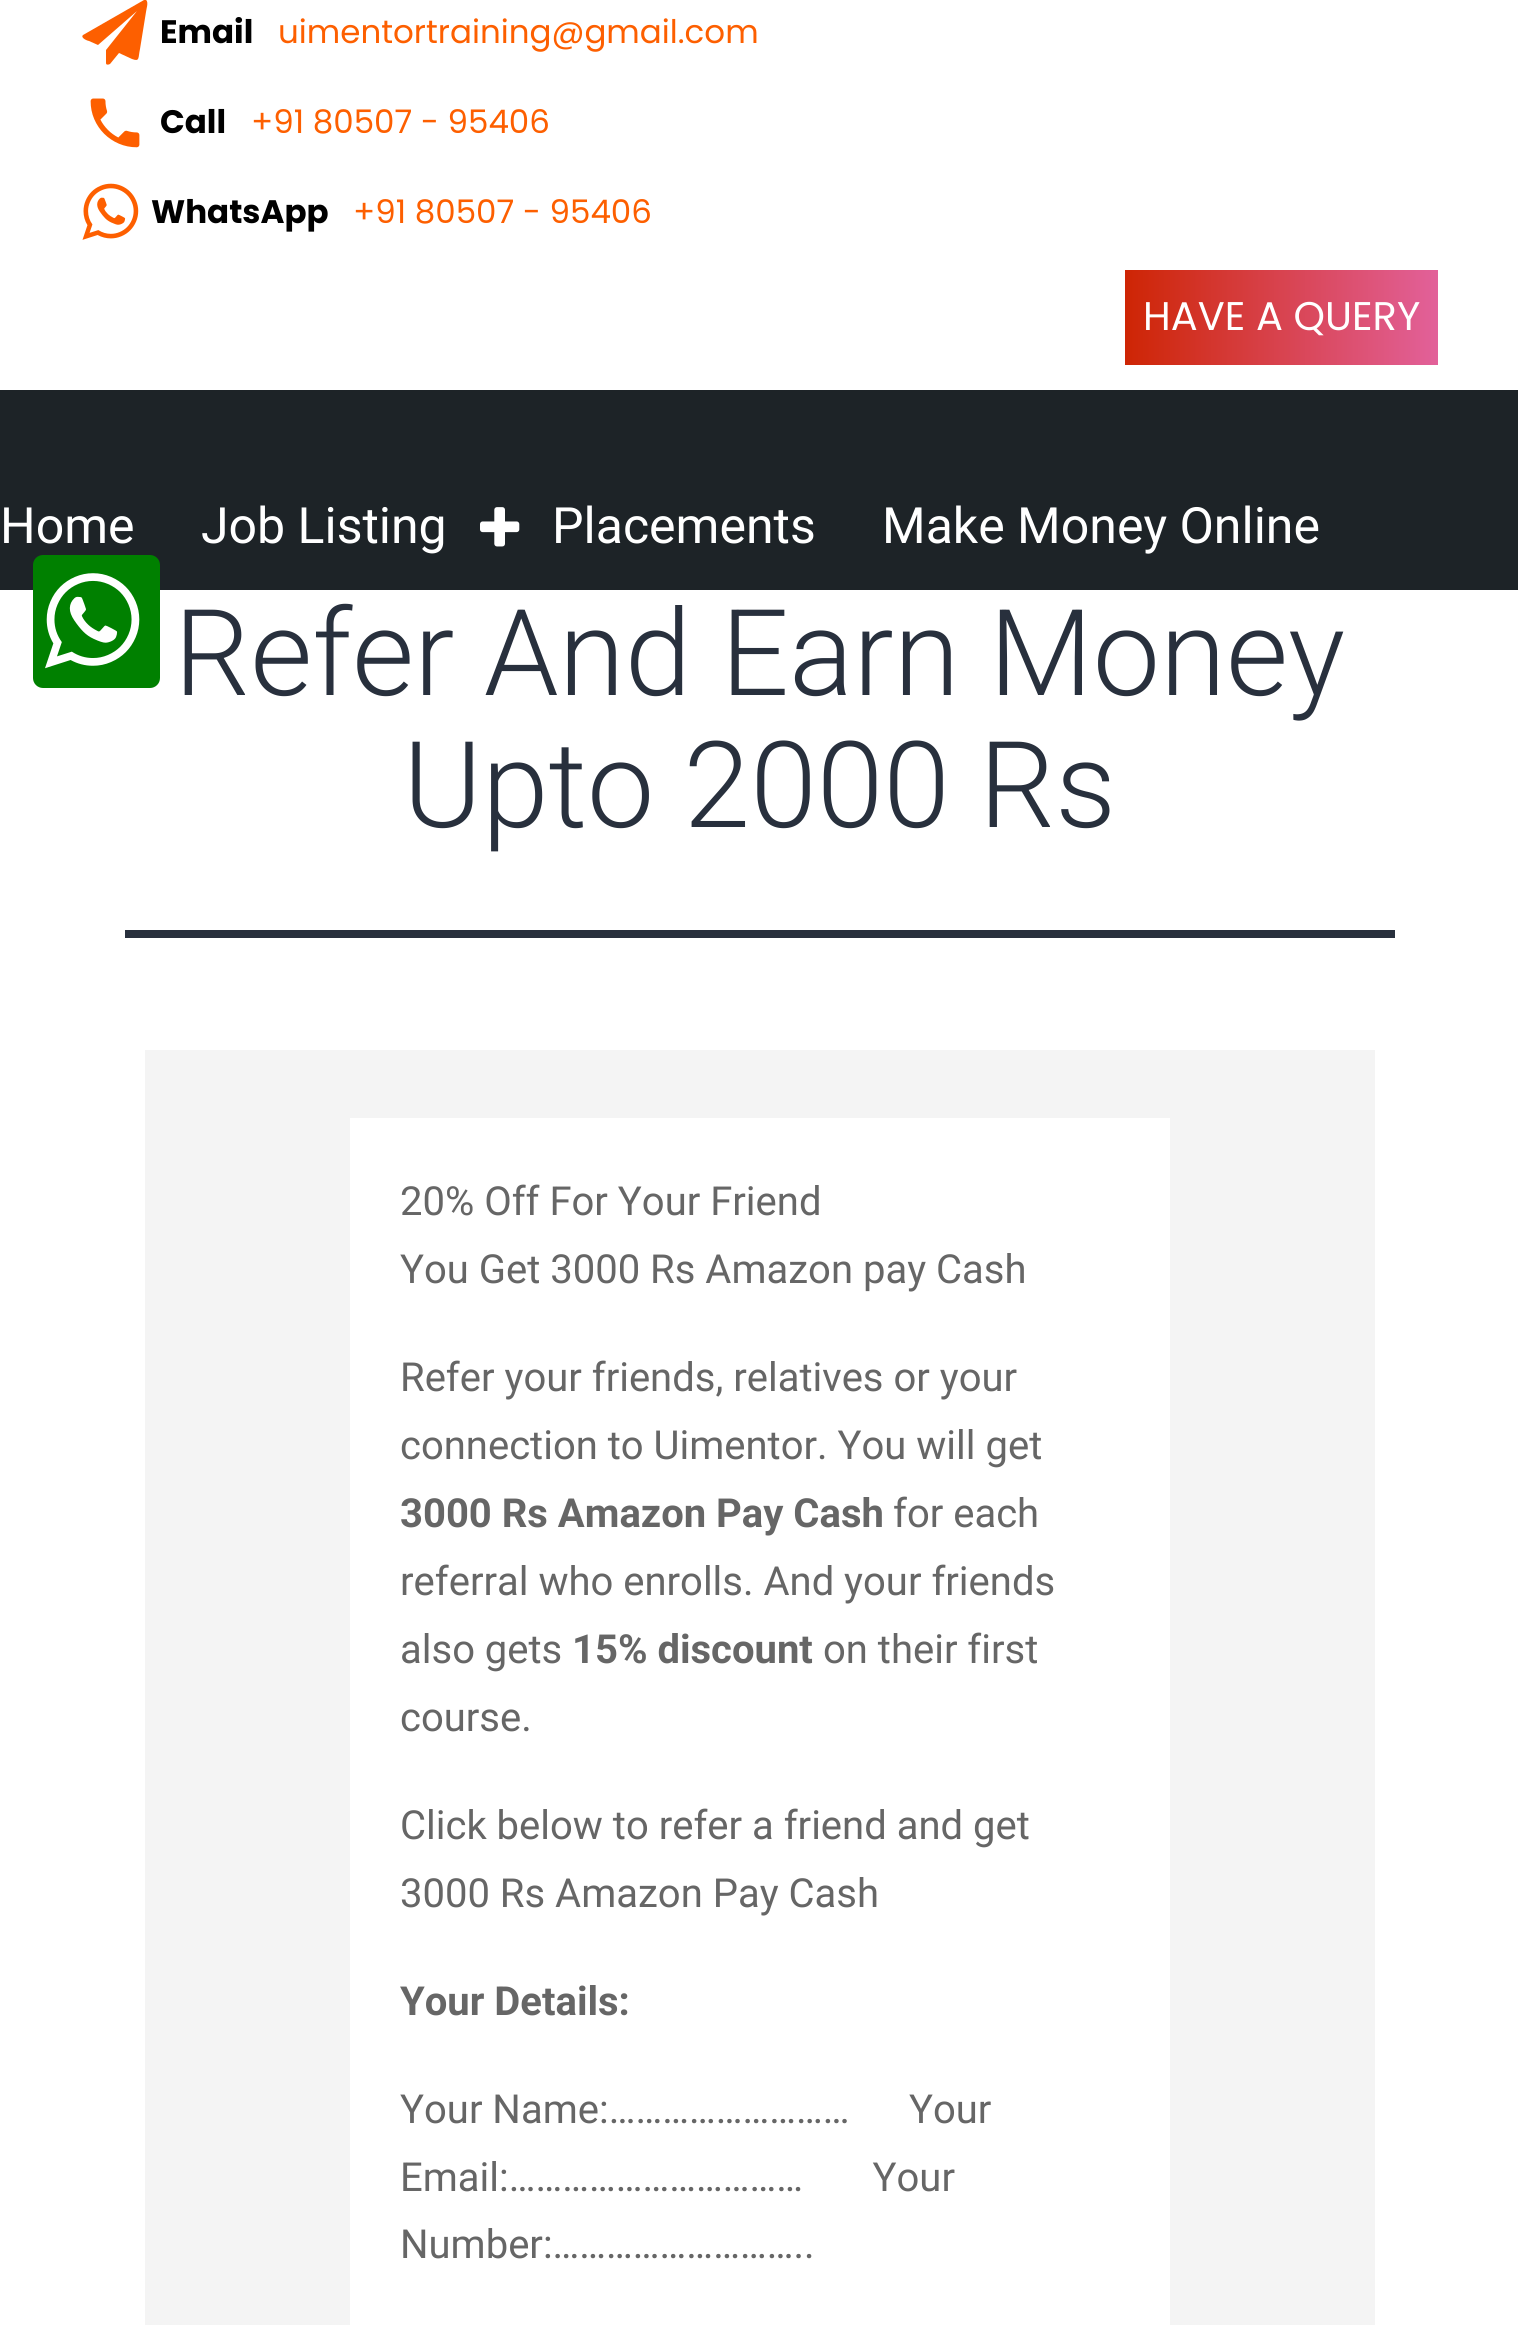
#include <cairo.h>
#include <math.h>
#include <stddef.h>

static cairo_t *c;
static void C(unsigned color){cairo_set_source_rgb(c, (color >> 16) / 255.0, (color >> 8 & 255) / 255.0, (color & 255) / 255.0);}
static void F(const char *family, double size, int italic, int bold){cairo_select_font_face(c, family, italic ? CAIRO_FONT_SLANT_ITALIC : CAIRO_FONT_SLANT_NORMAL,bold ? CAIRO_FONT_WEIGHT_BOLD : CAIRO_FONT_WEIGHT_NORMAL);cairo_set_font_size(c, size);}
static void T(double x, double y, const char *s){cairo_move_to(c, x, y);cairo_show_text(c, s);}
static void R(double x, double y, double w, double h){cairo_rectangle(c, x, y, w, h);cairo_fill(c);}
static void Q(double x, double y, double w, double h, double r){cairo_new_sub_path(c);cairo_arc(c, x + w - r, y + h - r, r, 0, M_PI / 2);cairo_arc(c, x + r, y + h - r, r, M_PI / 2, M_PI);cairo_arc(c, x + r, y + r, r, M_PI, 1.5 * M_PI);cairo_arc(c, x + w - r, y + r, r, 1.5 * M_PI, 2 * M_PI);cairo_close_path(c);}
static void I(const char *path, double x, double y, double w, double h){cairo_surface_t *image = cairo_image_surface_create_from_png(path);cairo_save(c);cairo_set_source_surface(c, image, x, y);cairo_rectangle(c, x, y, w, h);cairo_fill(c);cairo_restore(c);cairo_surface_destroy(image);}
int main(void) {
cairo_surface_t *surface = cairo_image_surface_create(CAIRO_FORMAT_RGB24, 1518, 2325);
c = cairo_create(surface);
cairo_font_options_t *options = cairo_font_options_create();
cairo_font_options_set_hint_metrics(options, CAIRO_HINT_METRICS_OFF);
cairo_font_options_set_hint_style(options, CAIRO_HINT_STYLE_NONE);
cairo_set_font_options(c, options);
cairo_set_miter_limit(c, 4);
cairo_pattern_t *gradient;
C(0xffffff);
cairo_paint(c);
C(0xfd5f00);
cairo_new_path(c);
cairo_move_to(c,146,0);
cairo_curve_to(c,149,2,146,10,146,12);
cairo_line_to(c,140,49);
cairo_curve_to(c,138,58,140,62,132,59);
cairo_line_to(c,119,53);
cairo_line_to(c,110,64);
cairo_curve_to(c,108,65,106,65,106,63);
cairo_line_to(c,106,50);
cairo_line_to(c,137,11);
cairo_line_to(c,98,45);
cairo_line_to(c,89,41);
cairo_curve_to(c,88,41,80,38,83,35);
cairo_line_to(c,144,0);
cairo_close_path(c);
cairo_fill(c);
F("Poppins",32.5,0,1);
C(0x000000);
T(160,43,"Email");
F("Poppins",32.5,0,0);
C(0xfd5f00);
T(278,43,"uimentortraining@gmail.com");
I("1.png",90,98,50,50);
F("Poppins",32.5,0,1);
C(0x000000);
T(160,133,"Call");
F("Poppins",32.5,0,0);
C(0xfd5f00);
T(251,133,"+91 80507 - 95406");
I("2.png",82,183,57,57);
F("Poppins",32.5,0,1);
C(0x000000);
T(151,223,"WhatsApp");
F("Poppins",32.5,0,0);
C(0xfd5f00);
T(353,223,"+91 80507 - 95406");
gradient = cairo_pattern_create_linear(1125,318,1438,318);
cairo_pattern_add_color_stop_rgba(gradient,0,0.808,0.145,0.016,1);
cairo_pattern_add_color_stop_rgba(gradient,1,0.886,0.38,0.604,1);
cairo_set_source(c,gradient);
cairo_pattern_destroy(gradient);
R(1125,270,313,95);
F("Poppins",40,0,0);
C(0xffffff);
T(1143,330,"HAVE A QUERY");
C(0x1d2327);
R(0,390,1518,200);
F("Roboto",50,0,0);
C(0xffffff);
T(0,543,"Home");
T(201,543,"Job Listing");
I("3.png",480,507,40,40);
T(552,543,"Placements");
T(882,543,"Make Money Online");
C(0x28303d);
R(125,930,1270,8);
F("Roboto Light",120,0,0);
T(174,695,"Refer And Earn Money");
T(403,827,"Upto 2000 Rs");
C(0xf4f4f4);
R(145,1050,1230,1275);
C(0xffffff);
R(350,1118,820,1207);
F("Roboto",40,0,0);
C(0x666666);
T(400,1215,"20% Off For Your Friend");
T(400,1283,"You Get 3000 Rs Amazon pay Cash");
T(400,1391,"Refer your friends, relatives or your");
T(400,1459,"connection to Uimentor. You will get");
F("Roboto",40,0,1);
T(400,1527,"3000 Rs Amazon Pay Cash");
F("Roboto",40,0,0);
T(893,1527,"for each");
T(400,1595,"referral who enrolls. And your friends");
T(400,1663,"also gets");
F("Roboto",40,0,1);
T(572,1663,"15% discount");
F("Roboto",40,0,0);
T(823,1663,"on their first");
T(400,1731,"course.");
T(400,1839,"Click below to refer a friend and get");
T(400,1907,"3000 Rs Amazon Pay Cash");
F("Roboto",40,0,1);
T(400,2015,"Your Details:");
F("Roboto",40,0,0);
T(400,2123,"Your Name:………………………      Your");
T(400,2191,"Email:……………………………       Your");
T(400,2258,"Number:………………………..");
C(0x008000);
Q(33,555,127,133,10);
cairo_fill(c);
I("4.png",45,573,95,96);
cairo_surface_write_to_png(surface, "o.png");
cairo_font_options_destroy(options);
cairo_destroy(c);
cairo_surface_destroy(surface);
return 0;
}
